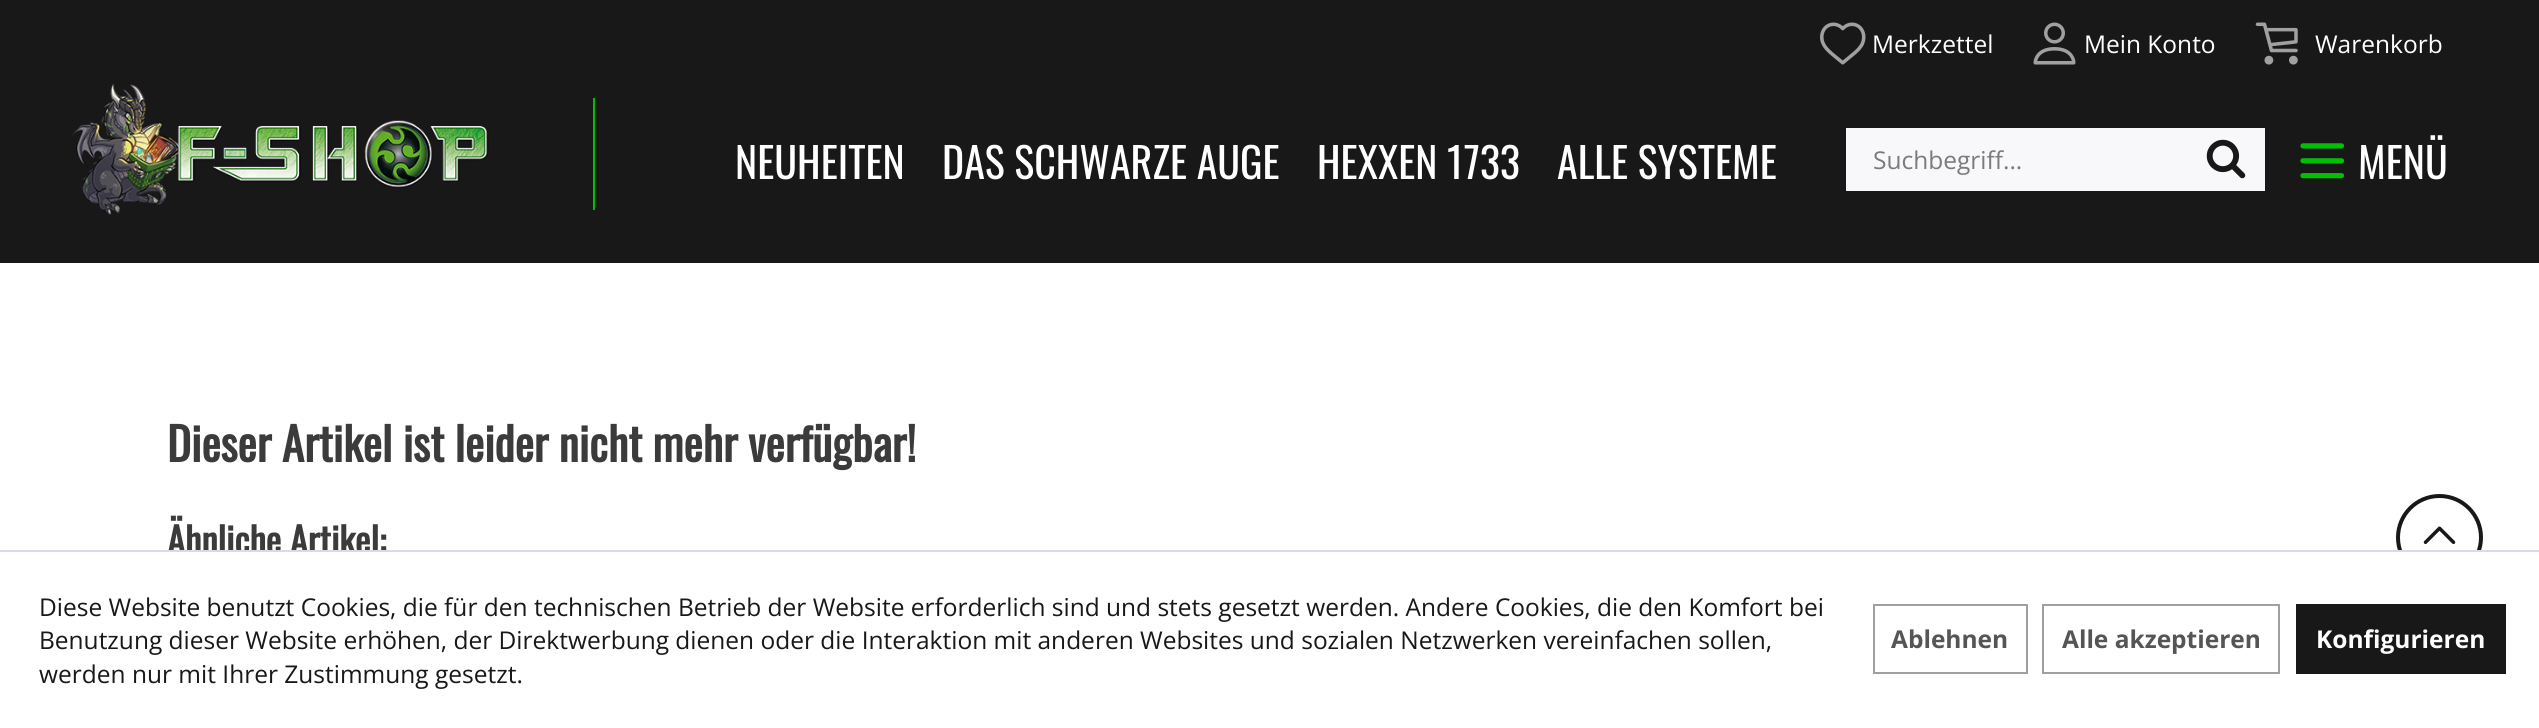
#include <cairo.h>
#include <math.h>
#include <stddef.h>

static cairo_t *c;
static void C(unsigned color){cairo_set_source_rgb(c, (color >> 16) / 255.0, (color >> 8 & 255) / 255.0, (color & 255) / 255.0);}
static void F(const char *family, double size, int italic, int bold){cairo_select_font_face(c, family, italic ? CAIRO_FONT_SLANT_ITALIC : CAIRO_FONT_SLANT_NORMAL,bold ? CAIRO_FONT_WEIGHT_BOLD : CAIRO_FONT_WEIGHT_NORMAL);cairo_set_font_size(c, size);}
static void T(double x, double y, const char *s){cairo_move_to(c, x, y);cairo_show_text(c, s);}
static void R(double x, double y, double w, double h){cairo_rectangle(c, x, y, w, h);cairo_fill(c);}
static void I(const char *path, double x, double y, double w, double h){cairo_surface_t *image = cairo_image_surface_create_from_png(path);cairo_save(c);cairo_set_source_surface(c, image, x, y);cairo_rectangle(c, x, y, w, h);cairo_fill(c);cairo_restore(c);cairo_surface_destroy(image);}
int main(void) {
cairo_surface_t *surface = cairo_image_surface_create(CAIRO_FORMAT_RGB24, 2539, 728);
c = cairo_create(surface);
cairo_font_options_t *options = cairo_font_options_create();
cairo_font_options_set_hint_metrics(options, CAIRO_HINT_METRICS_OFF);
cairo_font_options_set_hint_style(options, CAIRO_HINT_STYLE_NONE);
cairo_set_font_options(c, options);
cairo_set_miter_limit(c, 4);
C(0xffffff);
cairo_paint(c);
C(0x181818);
R(0,0,2539,263);
I("1.png",1820,22,46,43);
F("Open Sans",24.5,0,0);
C(0xffffff);
T(1872,53,"Merkzettel");
I("2.png",2033,22,43,43);
T(2084,53,"Mein Konto");
I("3.png",2255,22,43,43);
T(2315,53,"Warenkorb");
I("4.png",72,84,417,131);
C(0x00c100);
R(593,98,2,112);
F("Oswald",42,0,0);
C(0xffffff);
T(735,179,"NEUHEITEN");
T(942,179,"DAS SCHWARZE AUGE");
T(1317,179,"HEXXEN 1733");
T(1557,179,"ALLE SYSTEME");
C(0xf8f8fa);
R(1846,128,419,63);
F("Open Sans",24.5,0,0);
C(0x7b7b7b);
T(1873,169,"Suchbegriff...");
I("5.png",2206,139,40,40);
I("6.png",2300,143,45,36);
F("Oswald",42,0,0);
C(0xffffff);
T(2358,179,"MENÜ");
F("Oswald",45.5,0,1);
C(0x3b3b3b);
T(167,462,"Dieser Artikel ist leider nicht mehr verfügbar!");
F("Oswald",36.75,0,1);
T(167,555,"Ähnliche Artikel:");
cairo_new_path(c);
cairo_arc(c,2439.5,537.5,41.5,0,2 * M_PI);
C(0x181818);
cairo_set_line_width(c,4);
cairo_stroke(c);
I("7.png",2423,526,33,18);
C(0xffffff);
R(167,552,2314,29);
C(0xdadae5);
R(0,550,2539,2);
F("Open Sans",24.5,0,0);
C(0x181818);
T(39,616,"Diese Website benutzt Cookies, die für den technischen Betrieb der Website erforderlich sind und stets gesetzt werden. Andere Cookies, die den Komfort bei");
T(39,649,"Benutzung dieser Website erhöhen, der Direktwerbung dienen oder die Interaktion mit anderen Websites und sozialen Netzwerken vereinfachen sollen,");
T(39,683,"werden nur mit Ihrer Zustimmung gesetzt.");
cairo_rectangle(c,1874,605,153,68);
C(0xa0a0a0);
cairo_set_line_width(c,2);
cairo_stroke(c);
F("Open Sans",24.5,0,1);
C(0x555555);
T(1891,648,"Ablehnen");
cairo_rectangle(c,2043,605,236,68);
C(0xa0a0a0);
cairo_stroke(c);
C(0x555555);
T(2062,648,"Alle akzeptieren");
C(0x181818);
R(2296,604,210,70);
C(0xffffff);
T(2316,648,"Konfigurieren");
cairo_surface_write_to_png(surface, "o.png");
cairo_font_options_destroy(options);
cairo_destroy(c);
cairo_surface_destroy(surface);
return 0;
}
